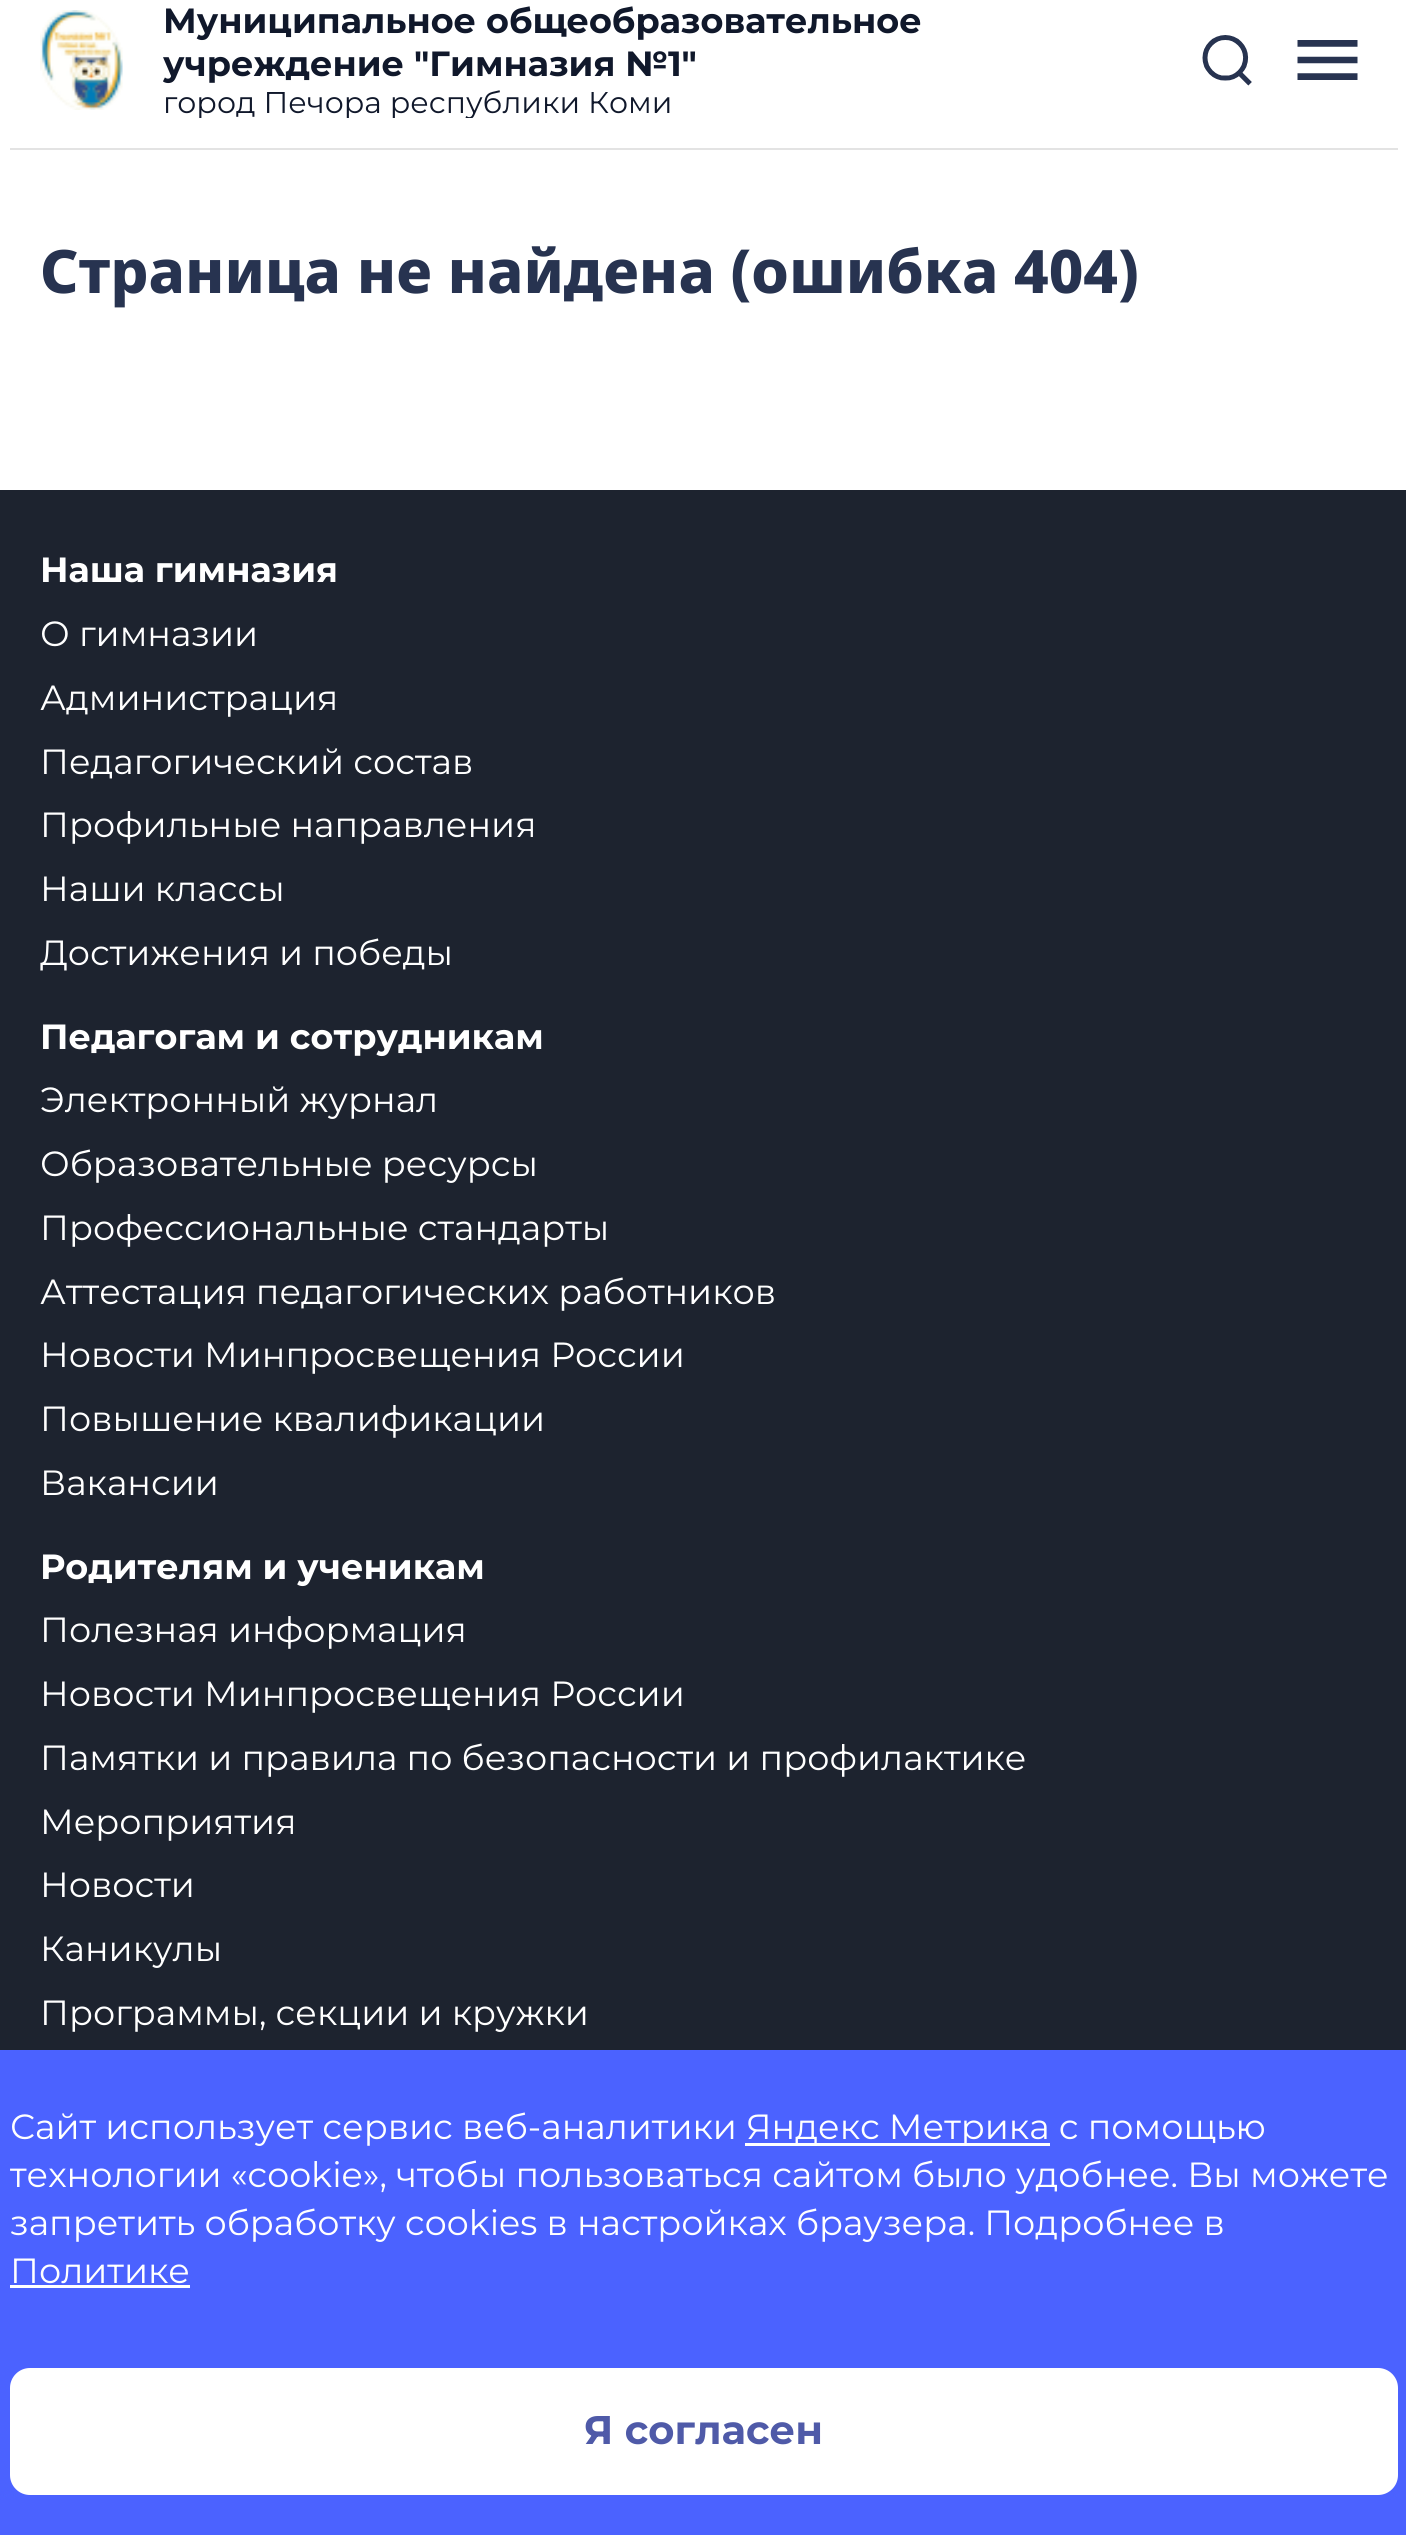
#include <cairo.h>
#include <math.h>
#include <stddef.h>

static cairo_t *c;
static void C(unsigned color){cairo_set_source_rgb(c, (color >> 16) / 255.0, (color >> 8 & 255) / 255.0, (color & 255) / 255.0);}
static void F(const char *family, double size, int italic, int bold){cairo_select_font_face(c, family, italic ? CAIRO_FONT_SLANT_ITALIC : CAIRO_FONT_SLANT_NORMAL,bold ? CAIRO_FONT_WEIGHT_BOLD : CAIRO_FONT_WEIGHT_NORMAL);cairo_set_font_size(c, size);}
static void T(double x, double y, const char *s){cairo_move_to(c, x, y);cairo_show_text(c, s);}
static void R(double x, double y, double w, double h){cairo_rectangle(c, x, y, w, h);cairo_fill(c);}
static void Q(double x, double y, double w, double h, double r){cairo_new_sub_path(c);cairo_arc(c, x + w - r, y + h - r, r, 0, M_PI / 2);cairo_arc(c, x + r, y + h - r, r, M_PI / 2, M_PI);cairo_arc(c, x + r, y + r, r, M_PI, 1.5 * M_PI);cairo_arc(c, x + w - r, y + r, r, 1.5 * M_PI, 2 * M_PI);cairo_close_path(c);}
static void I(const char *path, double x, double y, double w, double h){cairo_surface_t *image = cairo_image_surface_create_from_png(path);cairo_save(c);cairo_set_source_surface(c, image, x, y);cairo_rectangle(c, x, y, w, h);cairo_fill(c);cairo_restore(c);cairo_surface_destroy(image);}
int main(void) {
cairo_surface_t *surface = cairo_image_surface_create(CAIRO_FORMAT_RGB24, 1406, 2535);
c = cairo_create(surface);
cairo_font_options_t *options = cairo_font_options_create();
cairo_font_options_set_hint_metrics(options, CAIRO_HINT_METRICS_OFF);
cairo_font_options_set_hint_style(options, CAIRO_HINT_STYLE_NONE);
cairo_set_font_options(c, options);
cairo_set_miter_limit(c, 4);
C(0xffffff);
cairo_paint(c);
I("1.png",40,10,83,100);
F("Montserrat",35,0,1);
C(0x10182b);
T(163,33,"Муниципальное общеобразовательное");
cairo_save(c);
cairo_rectangle(c,163,0,1005,118);
cairo_clip(c);
T(163,76,"учреждение \"Гимназия №1\"");
F("Montserrat",30,0,0);
T(163,113,"город Печора республики Коми");
cairo_restore(c);
I("2.png",1202,35,50,51);
I("3.png",1297,40,61,40);
C(0xe3e3e3);
R(10,148,1388,2);
F("Noto Sans ExtraBold",60,0,0);
C(0x273350);
T(40,293,"Страница не найдена (ошибка 404)");
C(0x1d232f);
R(0,490,1406,1560);
F("Montserrat",35,0,1);
C(0xffffff);
T(40,582,"Наша гимназия");
F("Montserrat",35,0,0);
T(40,646,"О гимназии");
T(40,710,"Администрация");
T(40,774,"Педагогический состав");
T(40,837,"Профильные направления");
T(40,901,"Наши классы");
T(40,965,"Достижения и победы");
F("Montserrat",35,0,1);
T(40,1049,"Педагогам и сотрудникам");
F("Montserrat",35,0,0);
T(40,1112,"Электронный журнал");
T(40,1176,"Образовательные ресурсы");
T(40,1240,"Профессиональные стандарты");
T(40,1304,"Аттестация педагогических работников");
T(40,1367,"Новости Минпросвещения России");
T(40,1431,"Повышение квалификации");
T(40,1495,"Вакансии");
F("Montserrat",35,0,1);
T(40,1579,"Родителям и ученикам");
F("Montserrat",35,0,0);
T(40,1642,"Полезная информация");
T(40,1706,"Новости Минпросвещения России");
T(40,1770,"Памятки и правила по безопасности и профилактике");
T(40,1834,"Мероприятия");
T(40,1897,"Новости");
T(40,1961,"Каникулы");
T(40,2025,"Программы, секции и кружки");
C(0x4b62ff);
R(0,2050,1406,485);
C(0xffffff);
T(10,2139,"Сайт использует сервис веб-аналитики");
R(745,2143,305,3);
T(746,2139,"Яндекс Метрика с помощью");
T(10,2187,"технологии «cookie», чтобы пользоваться сайтом было удобнее. Вы можете");
T(10,2235,"запретить обработку cookies в настройках браузера. Подробнее в");
T(10,2283,"Политике");
R(10,2285,180,3);
Q(10,2368,1388,127,20);
cairo_fill(c);
F("Montserrat",40,0,1);
C(0x4f5aa8);
T(584,2444,"Я согласен");
cairo_surface_write_to_png(surface, "o.png");
cairo_font_options_destroy(options);
cairo_destroy(c);
cairo_surface_destroy(surface);
return 0;
}
